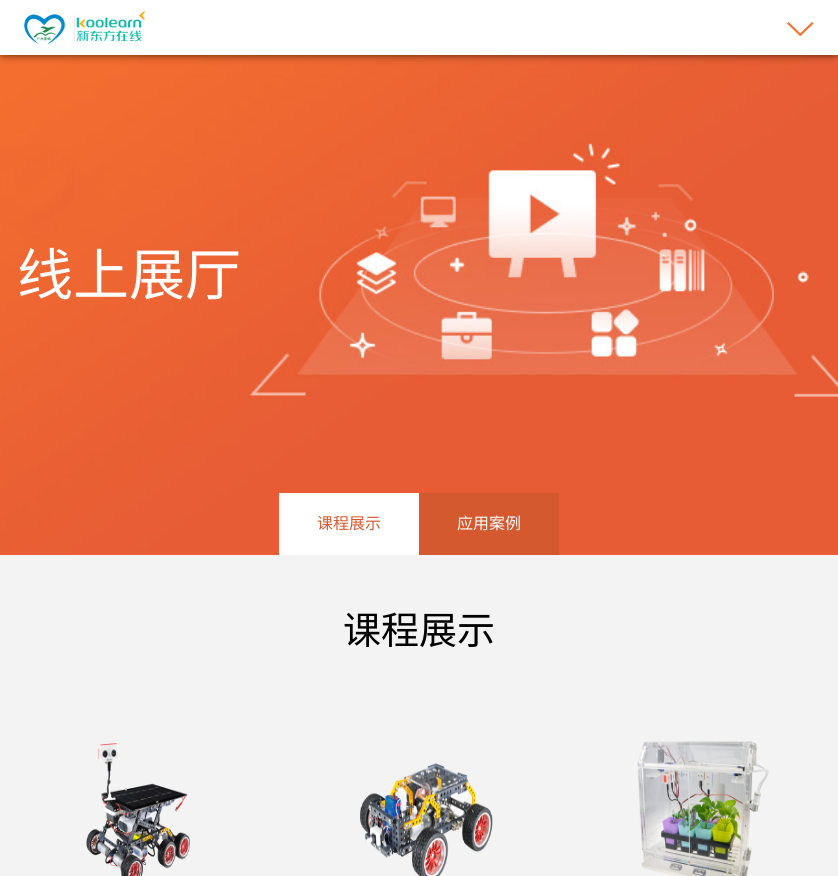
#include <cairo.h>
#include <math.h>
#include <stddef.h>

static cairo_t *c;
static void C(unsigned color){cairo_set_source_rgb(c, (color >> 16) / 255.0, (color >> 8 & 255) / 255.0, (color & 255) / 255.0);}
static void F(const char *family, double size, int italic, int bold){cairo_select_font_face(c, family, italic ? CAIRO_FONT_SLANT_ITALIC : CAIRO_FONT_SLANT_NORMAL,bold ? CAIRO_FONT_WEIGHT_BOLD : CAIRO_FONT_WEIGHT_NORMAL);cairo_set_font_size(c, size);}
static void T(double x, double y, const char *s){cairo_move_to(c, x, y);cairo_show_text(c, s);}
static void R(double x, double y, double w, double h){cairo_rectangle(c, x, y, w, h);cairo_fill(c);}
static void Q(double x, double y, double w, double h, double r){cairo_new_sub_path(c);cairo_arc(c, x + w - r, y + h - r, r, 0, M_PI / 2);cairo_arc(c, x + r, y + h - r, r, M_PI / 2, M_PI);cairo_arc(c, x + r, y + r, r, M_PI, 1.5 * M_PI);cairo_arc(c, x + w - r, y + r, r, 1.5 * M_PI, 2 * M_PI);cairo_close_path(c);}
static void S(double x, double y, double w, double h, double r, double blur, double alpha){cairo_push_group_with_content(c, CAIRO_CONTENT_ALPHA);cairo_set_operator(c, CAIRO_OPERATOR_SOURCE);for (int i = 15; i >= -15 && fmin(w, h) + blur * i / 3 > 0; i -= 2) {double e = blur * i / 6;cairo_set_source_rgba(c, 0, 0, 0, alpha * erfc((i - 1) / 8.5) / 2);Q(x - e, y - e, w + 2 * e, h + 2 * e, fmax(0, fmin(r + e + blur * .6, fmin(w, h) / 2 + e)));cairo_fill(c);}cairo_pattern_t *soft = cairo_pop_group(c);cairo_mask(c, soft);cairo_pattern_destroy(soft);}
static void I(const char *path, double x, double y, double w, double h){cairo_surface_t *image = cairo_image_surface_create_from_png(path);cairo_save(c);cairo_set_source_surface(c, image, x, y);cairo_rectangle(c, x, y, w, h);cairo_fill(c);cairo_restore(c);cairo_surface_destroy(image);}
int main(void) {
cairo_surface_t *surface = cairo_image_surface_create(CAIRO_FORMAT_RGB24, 838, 876);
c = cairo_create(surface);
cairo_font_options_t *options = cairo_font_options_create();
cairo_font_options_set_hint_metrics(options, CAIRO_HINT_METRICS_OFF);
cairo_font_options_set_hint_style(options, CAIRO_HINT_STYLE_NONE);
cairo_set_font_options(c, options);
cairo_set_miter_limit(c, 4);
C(0xf3f3f3);
cairo_paint(c);
I("2.png",0,55,838,500);
C(0x000000);
S(3,4,832,49,0,5,1);
C(0xffffff);
R(0,0,838,55);
I("1.png",24,11,122,33);
C(0xf6712e);
cairo_new_path(c);
cairo_move_to(c,788.5,22);
cairo_line_to(c,801.5,34.5);
cairo_line_to(c,800,36);
cairo_line_to(c,787,23.5);
cairo_close_path(c);
cairo_fill(c);
cairo_new_path(c);
cairo_move_to(c,799,34.5);
cairo_line_to(c,812,22);
cairo_line_to(c,813.5,23.5);
cairo_line_to(c,800.5,36);
cairo_close_path(c);
cairo_fill(c);
F("Noto Sans CJK SC",56,0,0);
C(0xffffff);
T(17,295,"线上展厅");
R(279,493,140,62);
F("Noto Sans CJK SC",16,0,0);
C(0xd55a2d);
T(317,529,"课程展示");
C(0xd4592e);
R(419,493,140,62);
C(0xffffff);
T(457,529,"应用案例");
F("Noto Sans CJK SC",38,0,0);
C(0x000000);
T(343,644,"课程展示");
I("3.png",86,743,104,133);
I("4.png",360,763,133,113);
I("5.png",637,741,132,135);
cairo_surface_write_to_png(surface, "o.png");
cairo_font_options_destroy(options);
cairo_destroy(c);
cairo_surface_destroy(surface);
return 0;
}
